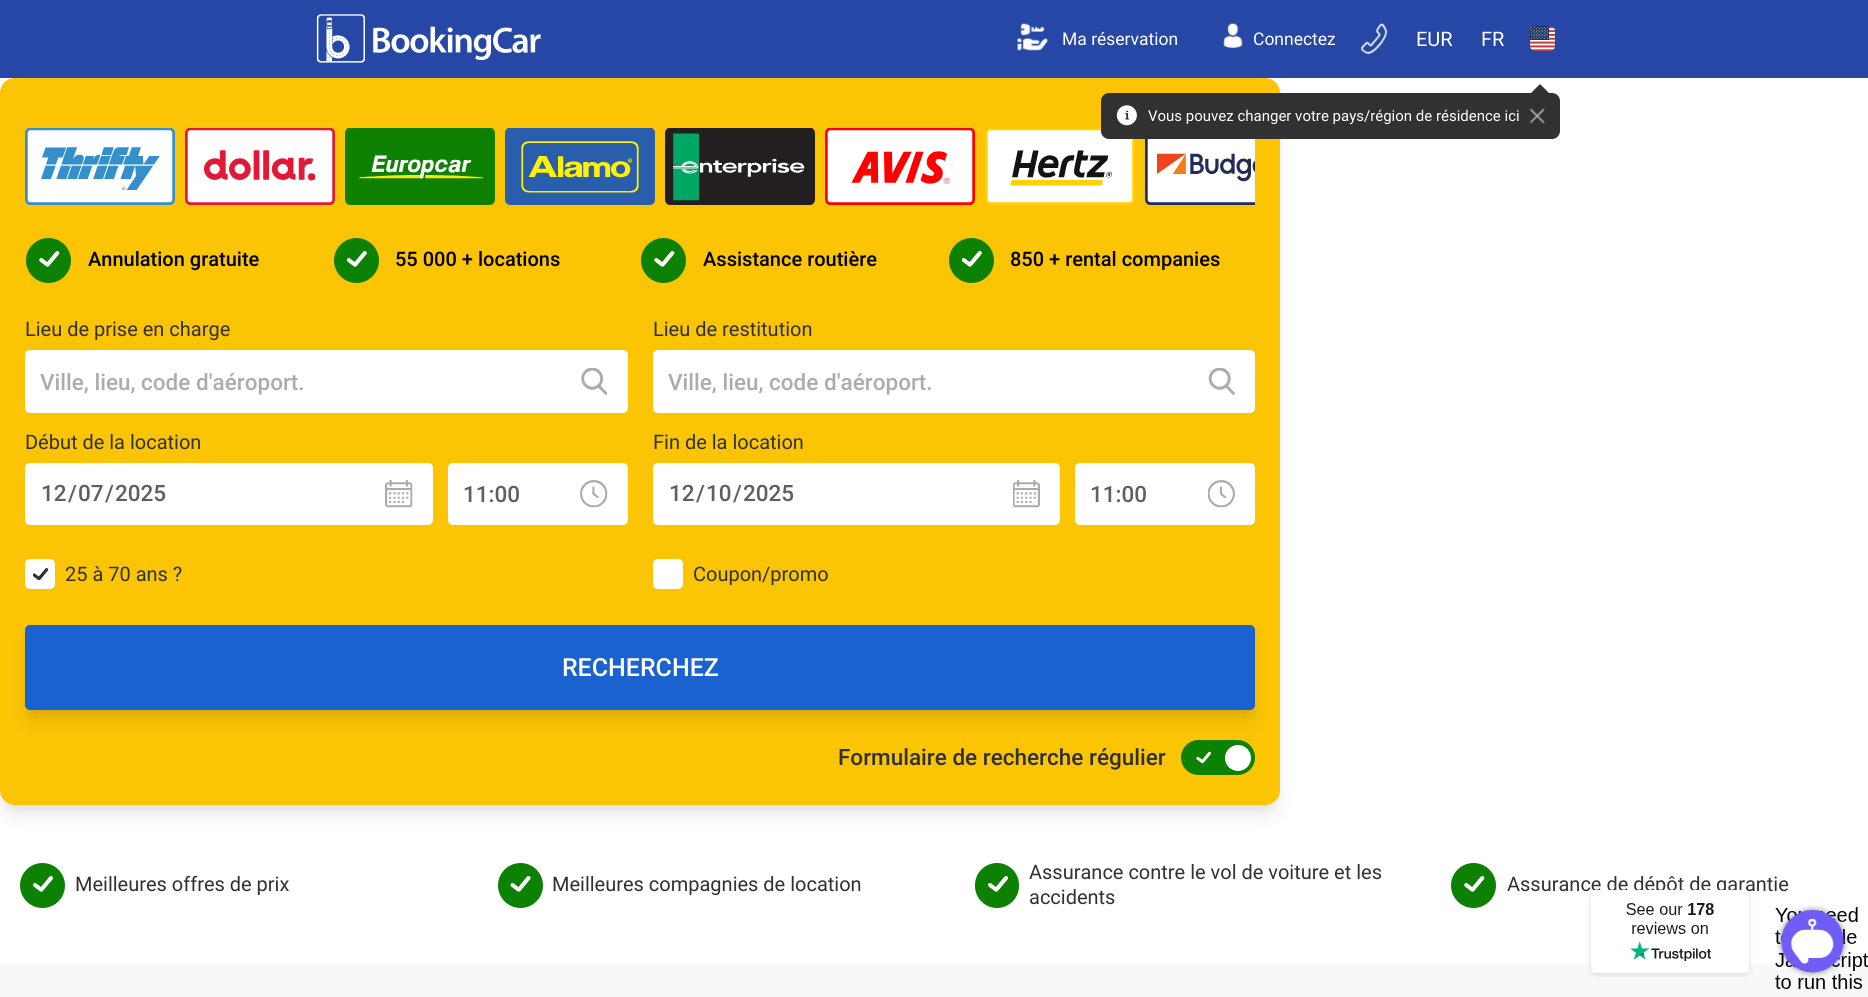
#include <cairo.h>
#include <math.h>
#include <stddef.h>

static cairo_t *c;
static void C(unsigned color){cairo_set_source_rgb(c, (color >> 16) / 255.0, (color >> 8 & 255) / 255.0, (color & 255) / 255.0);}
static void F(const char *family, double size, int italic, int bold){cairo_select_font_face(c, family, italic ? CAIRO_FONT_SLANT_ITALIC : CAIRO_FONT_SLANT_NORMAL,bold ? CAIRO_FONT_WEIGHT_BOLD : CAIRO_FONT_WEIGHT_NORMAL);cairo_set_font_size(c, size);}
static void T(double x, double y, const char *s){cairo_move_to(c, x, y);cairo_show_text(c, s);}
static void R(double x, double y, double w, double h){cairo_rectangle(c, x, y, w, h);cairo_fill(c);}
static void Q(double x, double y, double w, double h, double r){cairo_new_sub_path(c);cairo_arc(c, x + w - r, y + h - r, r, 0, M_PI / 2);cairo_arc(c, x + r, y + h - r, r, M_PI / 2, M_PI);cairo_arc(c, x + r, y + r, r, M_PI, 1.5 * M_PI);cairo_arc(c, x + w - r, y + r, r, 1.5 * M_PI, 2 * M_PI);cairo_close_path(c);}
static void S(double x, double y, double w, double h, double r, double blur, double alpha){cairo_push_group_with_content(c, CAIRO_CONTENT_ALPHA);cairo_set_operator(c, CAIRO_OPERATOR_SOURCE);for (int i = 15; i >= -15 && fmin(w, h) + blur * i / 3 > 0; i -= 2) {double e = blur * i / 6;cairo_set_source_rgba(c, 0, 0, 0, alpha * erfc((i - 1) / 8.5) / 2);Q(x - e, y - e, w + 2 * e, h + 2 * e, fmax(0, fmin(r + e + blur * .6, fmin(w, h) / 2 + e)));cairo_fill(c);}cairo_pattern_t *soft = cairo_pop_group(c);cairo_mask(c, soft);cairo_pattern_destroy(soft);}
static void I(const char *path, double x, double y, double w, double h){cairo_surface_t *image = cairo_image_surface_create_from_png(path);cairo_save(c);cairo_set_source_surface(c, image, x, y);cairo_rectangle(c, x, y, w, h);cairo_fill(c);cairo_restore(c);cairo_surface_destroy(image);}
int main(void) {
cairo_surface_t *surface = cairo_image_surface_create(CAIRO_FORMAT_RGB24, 1868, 997);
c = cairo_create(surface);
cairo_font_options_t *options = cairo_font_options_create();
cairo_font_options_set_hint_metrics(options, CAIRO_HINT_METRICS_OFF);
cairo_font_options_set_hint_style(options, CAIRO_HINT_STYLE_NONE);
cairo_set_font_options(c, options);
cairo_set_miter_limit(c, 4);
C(0xffffff);
cairo_paint(c);
C(0x000000);
S(3,85,1275,723,13,4,.05);
S(4,94,1272,720,11,9.5,.1);
C(0x2647a5);
R(0,0,1868,78);
I("1.png",316,14,225,49);
I("2.png",1017,23,31,28);
F("Roboto",17.5,0,0);
C(0xffffff);
T(1062,45,"Ma réservation");
I("3.png",1223,23,20,25);
T(1253,45,"Connectez");
I("4.png",1361,23,27,31);
F("Roboto",20,0,0);
T(1416,46,"EUR");
T(1481,46,"FR");
I("5.png",1530,26,25,25);
C(0xfbc405);
Q(0,78,1280,727,15);
cairo_fill(c);
I("14.png",985,128,150,77);
C(0x313131);
Q(1101,93,459,46,8);
cairo_fill(c);
cairo_new_path(c);
cairo_move_to(c,1540.5,84.5);
cairo_line_to(c,1551,95);
cairo_curve_to(c,1552.5,111.5,1528,112.5,1527.5,96.5);
cairo_line_to(c,1539.5,84.5);
cairo_close_path(c);
cairo_fill(c);
I("6.png",1116,105,21,21);
F("Roboto",15,0,0);
C(0xffffff);
T(1148,121,"Vous pouvez changer votre pays/région de résidence ici");
I("7.png",1529,108,16,16);
I("8.png",25,128,150,77);
I("9.png",185,128,150,77);
I("10.png",345,128,150,77);
I("11.png",505,128,150,77);
I("12.png",665,128,150,77);
I("13.png",825,128,150,77);
I("15.png",1145,139,110,66);
C(0x0d8103);
cairo_arc(c,48.5,260.5,22.5,0,2 * M_PI);
cairo_fill(c);
I("16.png",39,251,21,16);
F("Roboto Medium",20,0,0);
C(0x000000);
T(88,266,"Annulation gratuite");
C(0x0d8103);
cairo_new_path(c);
cairo_arc(c,356.5,260.5,22.5,0,2 * M_PI);
cairo_fill(c);
I("17.png",347,251,20,16);
C(0x000000);
T(395,266,"55 000 + locations");
C(0x0d8103);
cairo_new_path(c);
cairo_arc(c,663.5,260.5,22.5,0,2 * M_PI);
cairo_fill(c);
I("16.png",654,251,21,16);
C(0x000000);
T(703,266,"Assistance routière");
C(0x0d8103);
cairo_new_path(c);
cairo_arc(c,971.5,260.5,22.5,0,2 * M_PI);
cairo_fill(c);
I("17.png",962,251,20,16);
C(0x000000);
T(1010,266,"850 + rental companies");
F("Roboto",20,0,0);
C(0x313131);
T(25,336,"Lieu de prise en charge");
C(0xffffff);
Q(25,350,603,63,5);
cairo_fill(c);
I("18.png",581,368,27,27);
F("Roboto Medium",22.5,0,0);
C(0xacacac);
T(40,390,"Ville, lieu, code d'aéroport.");
F("Roboto",20,0,0);
C(0x313131);
T(653,336,"Lieu de restitution");
C(0xffffff);
Q(653,350,602,63,5);
cairo_fill(c);
I("19.png",1208,368,27,27);
F("Roboto Medium",22.5,0,0);
C(0xacacac);
T(668,390,"Ville, lieu, code d'aéroport.");
F("Roboto",20,0,0);
C(0x313131);
T(25,449,"Début de la location");
C(0xffffff);
Q(25,463,408,62,5);
cairo_fill(c);
I("20.png",385,480,28,28);
F("Roboto Medium",22.5,0,0);
C(0x5f5f5f);
T(41,501,"12");
T(68,501,"/");
T(78,501,"07");
T(105,501,"/");
T(115,501,"2025");
C(0xffffff);
Q(448,463,180,62,5);
cairo_fill(c);
I("21.png",580,480,28,28);
C(0x5f5f5f);
T(463,502,"11:00");
F("Roboto",20,0,0);
C(0x313131);
T(653,449,"Fin de la location");
C(0xffffff);
Q(653,463,407,62,5);
cairo_fill(c);
I("22.png",1013,480,27,28);
F("Roboto Medium",22.5,0,0);
C(0x5f5f5f);
T(669,501,"12");
T(696,501,"/");
T(706,501,"10");
T(733,501,"/");
T(743,501,"2025");
C(0xffffff);
Q(1075,463,180,62,5);
cairo_fill(c);
I("23.png",1208,480,27,28);
C(0x5f5f5f);
T(1090,502,"11:00");
C(0xffffff);
Q(25,559,30,30,5);
cairo_fill(c);
I("24.png",33,568,16,13);
F("Roboto",20,0,0);
C(0x313131);
T(65,581,"25 à 70 ans ?");
C(0xffffff);
Q(653,559,30,30,5);
cairo_fill(c);
C(0x313131);
T(693,581,"Coupon/promo");
C(0x000000);
S(28,633,1225,80,2.5,4,.05);
S(29,641,1222,78,1,9.5,.1);
C(0x1a62cf);
Q(25,625,1230,85,5);
cairo_fill(c);
F("Roboto Medium",25,0,0);
C(0xffffff);
T(562,676,"RECHERCHEZ");
F("Roboto Medium",22.5,0,0);
C(0x313131);
T(838,765,"Formulaire de recherche régulier");
C(0x0d8103);
Q(1181,740,74,35,17.5);
cairo_fill(c);
I("25.png",1196,751,15,13);
C(0xffffff);
cairo_arc(c,1238,758,13,0,2 * M_PI);
cairo_fill(c);
C(0x0d8103);
cairo_arc(c,42.5,885.5,22.5,0,2 * M_PI);
cairo_fill(c);
I("26.png",33,876,20,16);
F("Roboto",20,0,0);
C(0x313131);
T(75,891,"Meilleures offres de prix");
C(0x0d8103);
cairo_new_path(c);
cairo_arc(c,520.5,885.5,22.5,0,2 * M_PI);
cairo_fill(c);
I("27.png",510,876,21,16);
C(0x313131);
T(552,891,"Meilleures compagnies de location");
C(0x0d8103);
Q(975,863,44,45,22);
cairo_fill(c);
I("26.png",988,876,20,16);
C(0x313131);
T(1029,879,"Assurance contre le vol de voiture et les");
T(1029,904,"accidents");
C(0x0d8103);
cairo_new_path(c);
cairo_arc(c,1473.5,885.5,22.5,0,2 * M_PI);
cairo_fill(c);
I("28.png",1464,876,21,16);
C(0x313131);
T(1507,891,"Assurance de dépôt de garantie");
C(0xf8f8f8);
R(0,965,1868,32);
C(0xdcdce6);
S(1591,893,158,82,4,2.5,1);
C(0xffffff);
Q(1591,890,158,83,4);
cairo_fill(c);
I("29.png",1626,903,88,59);
I("30.png",1775,905,93,84);
cairo_surface_write_to_png(surface, "o.png");
cairo_font_options_destroy(options);
cairo_destroy(c);
cairo_surface_destroy(surface);
return 0;
}
